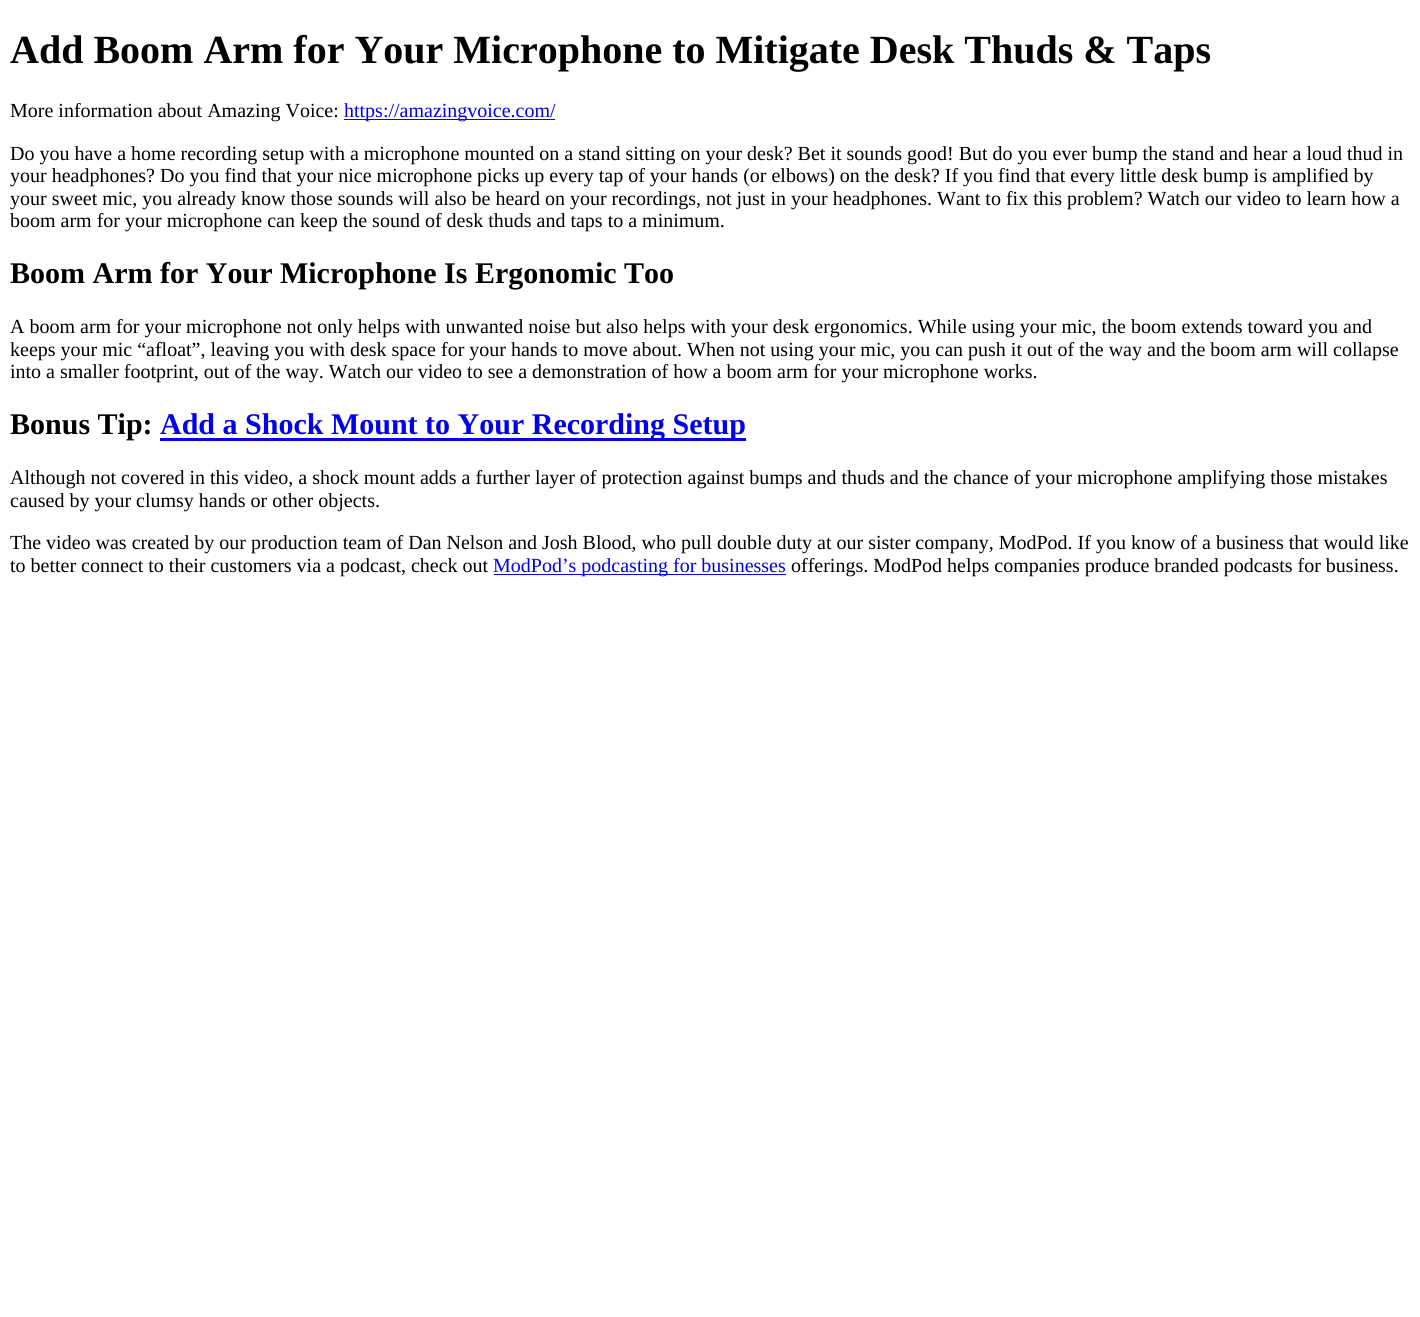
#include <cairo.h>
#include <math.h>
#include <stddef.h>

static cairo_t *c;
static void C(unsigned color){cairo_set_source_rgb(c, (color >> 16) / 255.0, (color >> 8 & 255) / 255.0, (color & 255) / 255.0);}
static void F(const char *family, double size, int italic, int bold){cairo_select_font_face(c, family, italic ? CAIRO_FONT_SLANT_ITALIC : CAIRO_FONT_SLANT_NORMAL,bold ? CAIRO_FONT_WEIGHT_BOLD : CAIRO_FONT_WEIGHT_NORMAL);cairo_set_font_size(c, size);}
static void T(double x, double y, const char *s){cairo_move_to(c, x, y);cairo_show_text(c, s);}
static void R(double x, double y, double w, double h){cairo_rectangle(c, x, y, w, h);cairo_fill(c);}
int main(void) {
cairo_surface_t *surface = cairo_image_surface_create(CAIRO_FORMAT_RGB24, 1420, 1317);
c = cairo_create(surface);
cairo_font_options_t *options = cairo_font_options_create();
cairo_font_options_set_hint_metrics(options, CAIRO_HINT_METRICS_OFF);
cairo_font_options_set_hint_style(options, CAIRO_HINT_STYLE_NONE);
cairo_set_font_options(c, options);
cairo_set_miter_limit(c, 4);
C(0xffffff);
cairo_paint(c);
F("Liberation Serif",40,0,1);
C(0x000000);
T(10,63,"Add Boom Arm for Your Microphone to Mitigate Desk Thuds & Taps");
F("Liberation Serif",20,0,0);
T(10,117,"More information about Amazing Voice:");
C(0x0000ee);
R(344,119,211,1);
T(344,117,"https://amazingvoice.com/");
C(0x000000);
T(10,160,"Do you have a home recording setup with a microphone mounted on a stand sitting on your desk? Bet it sounds good! But do you ever bump the stand and hear a loud thud in");
T(10,182,"your headphones? Do you find that your nice microphone picks up every tap of your hands (or elbows) on the desk? If you find that every little desk bump is amplified by");
T(10,205,"your sweet mic, you already know those sounds will also be heard on your recordings, not just in your headphones. Want to fix this problem? Watch our video to learn how a");
T(10,227,"boom arm for your microphone can keep the sound of desk thuds and taps to a minimum.");
F("Liberation Serif",30,0,1);
T(10,283,"Boom Arm for Your Microphone Is Ergonomic Too");
F("Liberation Serif",20,0,0);
T(10,333,"A boom arm for your microphone not only helps with unwanted noise but also helps with your desk ergonomics. While using your mic, the boom extends toward you and");
T(10,356,"keeps your mic “afloat”, leaving you with desk space for your hands to move about. When not using your mic, you can push it out of the way and the boom arm will collapse");
T(10,378,"into a smaller footprint, out of the way. Watch our video to see a demonstration of how a boom arm for your microphone works.");
F("Liberation Serif",30,0,1);
T(10,434,"Bonus Tip:");
C(0x0000ee);
R(160,438,586,3);
T(160,434,"Add a Shock Mount to Your Recording Setup");
F("Liberation Serif",20,0,0);
C(0x000000);
T(10,484,"Although not covered in this video, a shock mount adds a further layer of protection against bumps and thuds and the chance of your microphone amplifying those mistakes");
T(10,507,"caused by your clumsy hands or other objects.");
T(10,549,"The video was created by our production team of Dan Nelson and Josh Blood, who pull double duty at our sister company, ModPod. If you know of a business that would like");
T(10,572,"to better connect to their customers via a podcast, check out");
C(0x0000ee);
R(494,574,292,1);
T(493,572,"ModPod’s podcasting for businesses");
C(0x000000);
T(791,572,"offerings. ModPod helps companies produce branded podcasts for business.");
cairo_surface_write_to_png(surface, "o.png");
cairo_font_options_destroy(options);
cairo_destroy(c);
cairo_surface_destroy(surface);
return 0;
}
